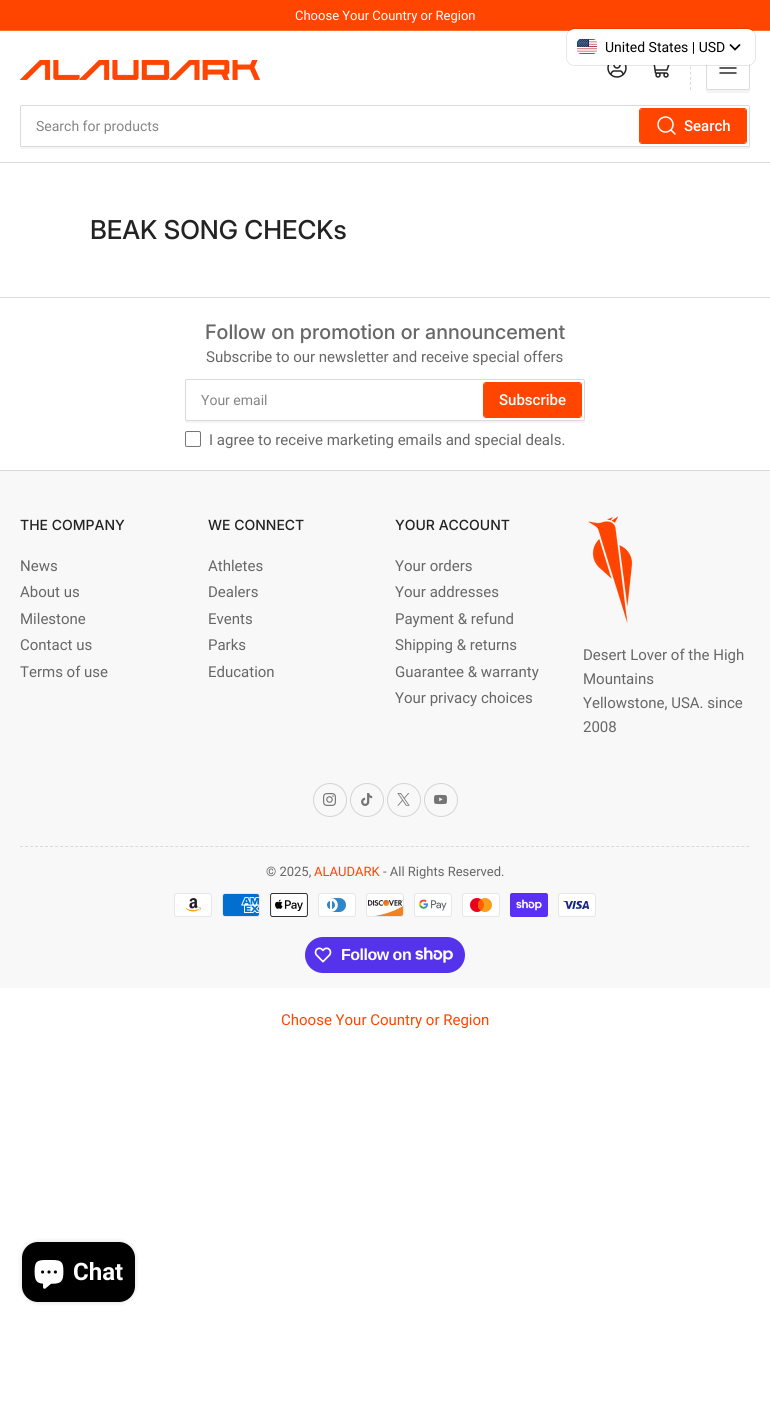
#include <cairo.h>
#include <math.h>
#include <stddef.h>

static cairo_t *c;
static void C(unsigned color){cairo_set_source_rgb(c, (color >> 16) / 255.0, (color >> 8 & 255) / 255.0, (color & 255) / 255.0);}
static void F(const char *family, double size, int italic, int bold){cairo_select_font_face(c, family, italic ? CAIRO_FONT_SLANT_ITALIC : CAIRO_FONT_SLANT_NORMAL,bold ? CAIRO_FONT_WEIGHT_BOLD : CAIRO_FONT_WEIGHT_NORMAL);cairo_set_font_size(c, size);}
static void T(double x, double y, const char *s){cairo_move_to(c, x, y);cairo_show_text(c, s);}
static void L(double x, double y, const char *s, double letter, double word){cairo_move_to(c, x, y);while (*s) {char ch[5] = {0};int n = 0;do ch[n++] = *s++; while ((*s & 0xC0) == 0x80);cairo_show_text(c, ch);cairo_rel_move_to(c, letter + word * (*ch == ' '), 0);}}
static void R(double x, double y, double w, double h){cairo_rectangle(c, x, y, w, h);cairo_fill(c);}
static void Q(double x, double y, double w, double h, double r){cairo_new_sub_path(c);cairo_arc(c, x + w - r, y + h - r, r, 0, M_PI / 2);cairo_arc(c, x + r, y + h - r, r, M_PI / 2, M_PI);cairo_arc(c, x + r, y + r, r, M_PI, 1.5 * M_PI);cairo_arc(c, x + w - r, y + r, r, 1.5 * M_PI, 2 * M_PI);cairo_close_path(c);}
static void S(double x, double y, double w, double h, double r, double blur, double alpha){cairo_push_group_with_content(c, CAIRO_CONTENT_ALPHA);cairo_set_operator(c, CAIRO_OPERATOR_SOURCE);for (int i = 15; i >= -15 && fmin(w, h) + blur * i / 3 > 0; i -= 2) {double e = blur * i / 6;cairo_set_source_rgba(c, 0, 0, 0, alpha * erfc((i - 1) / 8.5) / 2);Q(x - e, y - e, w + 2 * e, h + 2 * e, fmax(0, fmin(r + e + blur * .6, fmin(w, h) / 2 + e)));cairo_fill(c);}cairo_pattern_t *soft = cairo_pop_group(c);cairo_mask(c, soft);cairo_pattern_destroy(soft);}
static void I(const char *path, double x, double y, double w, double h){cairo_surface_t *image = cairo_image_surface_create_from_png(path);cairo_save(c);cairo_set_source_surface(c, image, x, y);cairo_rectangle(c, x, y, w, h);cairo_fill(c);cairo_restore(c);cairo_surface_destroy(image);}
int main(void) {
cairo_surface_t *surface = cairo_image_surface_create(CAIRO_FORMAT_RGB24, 770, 1427);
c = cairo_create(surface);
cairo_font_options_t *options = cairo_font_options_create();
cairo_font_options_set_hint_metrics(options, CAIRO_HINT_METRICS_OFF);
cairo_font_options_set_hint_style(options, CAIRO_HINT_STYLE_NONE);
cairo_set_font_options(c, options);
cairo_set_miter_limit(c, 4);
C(0xffffff);
cairo_paint(c);
C(0xff4500);
R(0,0,770,30);
C(0xff6a33);
R(0,30,770,1);
F("Roboto",13,0,0);
C(0xffffff);
T(295,20,"Choose Your Country or Region");
I("3.png",607,65,20,13);
I("4.png",653,65,17,13);
cairo_new_path(c);
cairo_move_to(c,690.5,46);
cairo_line_to(c,690.5,90);
C(0xdadada);
cairo_set_line_width(c,1);
cairo_set_dash(c,(double[]){3,2.12},2,0);
cairo_stroke(c);
C(0xf4f4f4);
cairo_new_path(c);
cairo_move_to(c,706,88);
cairo_curve_to(c,706,95,707,93,715,93);
cairo_line_to(c,741,93);
cairo_curve_to(c,749,93,750,95,750,88);
cairo_curve_to(c,750,89,749,90,748,90);
cairo_line_to(c,708,90);
cairo_curve_to(c,707,90,706,89,706,88);
cairo_close_path(c);
cairo_fill(c);
Q(706.5,46.5,43,43,1.5);
C(0xdadada);
cairo_set_dash(c,NULL,0,0);
cairo_stroke(c);
Q(566.5,28.5,189,37,8.5);
cairo_set_source_rgba(c,0,0,0,0.1);
cairo_stroke(c);
C(0xffffff);
Q(567,29,188,36,8);
cairo_fill(c);
I("1.png",577,39,20,15);
F("Roboto",14,0,0);
C(0x000000);
T(605,52,"United States | USD");
cairo_new_path(c);
cairo_move_to(c,730,44.5);
cairo_line_to(c,735,49.5);
cairo_line_to(c,740,44.5);
cairo_set_line_width(c,1.7);
cairo_stroke(c);
C(0xdadada);
R(0,162,770,1);
I("2.png",20,60,240,20);
I("5.png",719,67,18,7);
C(0xf4f4f4);
cairo_new_path(c);
cairo_move_to(c,20,145);
cairo_curve_to(c,20,147,20,149,22,149);
cairo_line_to(c,748,149);
cairo_line_to(c,750,148);
cairo_line_to(c,750,145);
cairo_curve_to(c,750,146,749,147,748,147);
cairo_line_to(c,22,147);
cairo_curve_to(c,21,147,20,146,20,145);
cairo_close_path(c);
cairo_fill(c);
Q(20.5,105.5,729,41,1.5);
C(0xdadada);
cairo_set_line_width(c,1);
cairo_stroke(c);
C(0x858585);
T(36,131,"Search for products");
Q(639.5,108.5,107,35,2.5);
C(0xff4500);
cairo_stroke(c);
Q(640,109,106,34,2);
cairo_fill(c);
I("6.png",657,116,19,19);
F("Roboto Medium",15,0,0);
C(0xffffff);
T(684,131,"Search");
F("Inter Medium",26,0,0);
C(0x232323);
T(90,239,"BEAK SONG CHECKs");
C(0xdadada);
R(0,297,770,1);
R(0,470,770,1);
F("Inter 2 Medium",20,0,0);
C(0x676767);
T(205,339,"Follow on promotion or announcement");
F("Roboto",15,0,0);
T(206,362,"Subscribe to our newsletter and receive special offers");
C(0xf4f4f4);
cairo_new_path(c);
cairo_move_to(c,185,419);
cairo_line_to(c,185,421);
cairo_curve_to(c,185,422,186,423,187,423);
cairo_line_to(c,583,423);
cairo_curve_to(c,584,423,585,422,585,421);
cairo_line_to(c,585,419);
cairo_curve_to(c,585,420,584,421,583,421);
cairo_line_to(c,187,421);
cairo_curve_to(c,186,421,185,420,185,419);
cairo_close_path(c);
cairo_fill(c);
Q(185.5,379.5,399,41,1.5);
C(0xdadada);
cairo_stroke(c);
F("Roboto",14,0,0);
C(0x858585);
T(201,405,"Your email");
Q(483.5,382.5,98,35,2.5);
C(0xff4500);
cairo_stroke(c);
Q(484,383,97,34,2);
cairo_fill(c);
F("Roboto Medium",15,0,0);
C(0xffffff);
T(499,405,"Subscribe");
Q(185.5,431.5,15,15,1.5);
C(0x767676);
cairo_stroke(c);
F("Roboto",15,0,0);
C(0x676767);
T(209,445,"I agree to receive marketing emails and special deals.");
C(0xf8f8f8);
R(0,471,770,517);
F("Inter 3 Medium",14,0,0);
C(0x232323);
T(20,530,"THE COMPANY");
F("Roboto",15,0,0);
C(0x676767);
T(20,571,"News");
T(20,597,"About us");
T(20,624,"Milestone");
T(20,650,"Contact us");
T(20,677,"Terms of use");
F("Inter 3 Medium",14,0,0);
C(0x232323);
T(208,530,"WE CONNECT");
F("Roboto",15,0,0);
C(0x676767);
T(208,571,"Athletes");
T(208,597,"Dealers");
T(208,624,"Events");
T(208,650,"Parks");
T(208,677,"Education");
F("Inter 3 Medium",14,0,0);
C(0x232323);
T(395,530,"YOUR ACCOUNT");
F("Roboto",15,0,0);
C(0x676767);
T(395,571,"Your orders");
T(395,597,"Your addresses");
T(395,624,"Payment & refund");
T(395,650,"Shipping & returns");
T(395,677,"Guarantee & warranty");
T(395,703,"Your privacy choices");
I("7.png",588,516,45,107);
T(583,660,"Desert Lover of the High");
T(583,684,"Mountains");
T(583,708,"Yellowstone, USA. since");
T(583,732,"2008");
cairo_new_path(c);
cairo_arc(c,330,800,16.5,0,2 * M_PI);
C(0xd4d4d4);
cairo_stroke(c);
I("8.png",323,793,13,13);
cairo_arc(c,367,800,16.5,0,2 * M_PI);
cairo_stroke(c);
I("9.png",361,793,12,13);
cairo_arc(c,404,800,16.5,0,2 * M_PI);
cairo_stroke(c);
I("10.png",397,793,13,13);
cairo_arc(c,441,800,16.5,0,2 * M_PI);
cairo_stroke(c);
I("11.png",434,794,13,11);
cairo_new_path(c);
cairo_move_to(c,20,846.5);
cairo_line_to(c,750,846.5);
C(0xdadada);
cairo_set_dash(c,(double[]){3,2.01},2,0);
cairo_stroke(c);
F("Roboto",13,0,0);
C(0x676767);
T(266,876,"© 2025,");
C(0xff4500);
T(314,876,"ALAUDARK");
C(0x676767);
T(383,876,"- All Rights Reserved.");
I("12.png",174,893,38,24);
I("13.png",222,893,38,24);
I("14.png",270,893,38,24);
I("15.png",318,893,38,24);
I("16.png",366,893,38,24);
I("17.png",414,893,38,24);
I("18.png",462,893,38,24);
I("19.png",510,893,38,24);
I("20.png",558,893,38,24);
C(0x5433eb);
Q(305,937,160,36,18);
cairo_fill(c);
I("21.png",314,947,18,16);
F("Liberation Sans",16,0,1);
C(0xffffff);
L(341,960,"Follow on",-.5,0);
I("22.png",415,947,38,16);
F("Roboto",15,0,0);
C(0xff4500);
T(281,1025,"Choose Your Country or Region");
C(0x000000);
S(22,1242,113,60,16,2.5,.15);
C(0x000000);
Q(22,1242,113,60,16);
cairo_fill(c);
I("23.png",34,1260,30,29);
F("Roboto",24,0,1);
C(0xffffff);
T(73,1280,"Chat");
cairo_surface_write_to_png(surface, "o.png");
cairo_font_options_destroy(options);
cairo_destroy(c);
cairo_surface_destroy(surface);
return 0;
}
